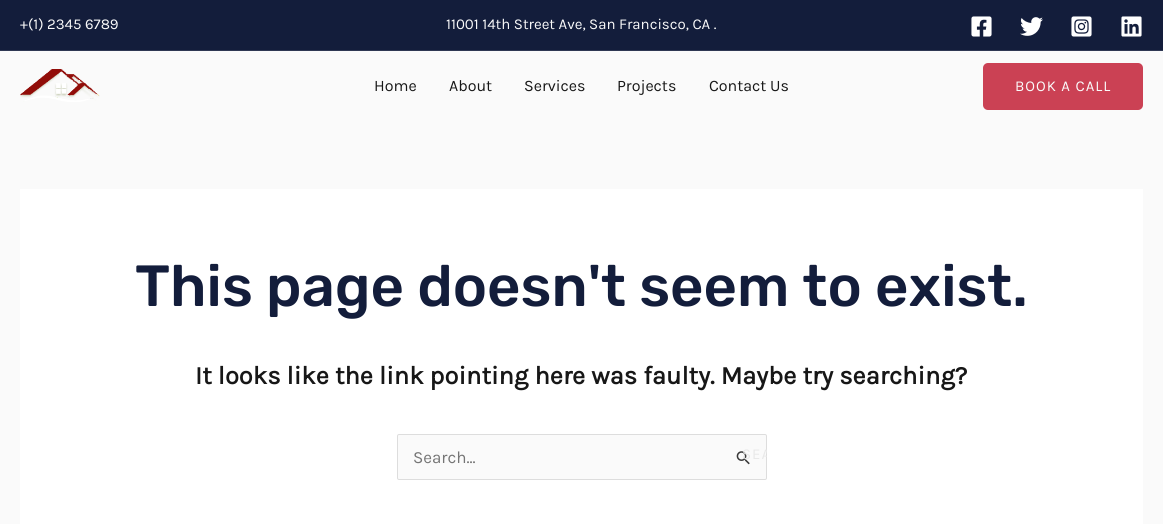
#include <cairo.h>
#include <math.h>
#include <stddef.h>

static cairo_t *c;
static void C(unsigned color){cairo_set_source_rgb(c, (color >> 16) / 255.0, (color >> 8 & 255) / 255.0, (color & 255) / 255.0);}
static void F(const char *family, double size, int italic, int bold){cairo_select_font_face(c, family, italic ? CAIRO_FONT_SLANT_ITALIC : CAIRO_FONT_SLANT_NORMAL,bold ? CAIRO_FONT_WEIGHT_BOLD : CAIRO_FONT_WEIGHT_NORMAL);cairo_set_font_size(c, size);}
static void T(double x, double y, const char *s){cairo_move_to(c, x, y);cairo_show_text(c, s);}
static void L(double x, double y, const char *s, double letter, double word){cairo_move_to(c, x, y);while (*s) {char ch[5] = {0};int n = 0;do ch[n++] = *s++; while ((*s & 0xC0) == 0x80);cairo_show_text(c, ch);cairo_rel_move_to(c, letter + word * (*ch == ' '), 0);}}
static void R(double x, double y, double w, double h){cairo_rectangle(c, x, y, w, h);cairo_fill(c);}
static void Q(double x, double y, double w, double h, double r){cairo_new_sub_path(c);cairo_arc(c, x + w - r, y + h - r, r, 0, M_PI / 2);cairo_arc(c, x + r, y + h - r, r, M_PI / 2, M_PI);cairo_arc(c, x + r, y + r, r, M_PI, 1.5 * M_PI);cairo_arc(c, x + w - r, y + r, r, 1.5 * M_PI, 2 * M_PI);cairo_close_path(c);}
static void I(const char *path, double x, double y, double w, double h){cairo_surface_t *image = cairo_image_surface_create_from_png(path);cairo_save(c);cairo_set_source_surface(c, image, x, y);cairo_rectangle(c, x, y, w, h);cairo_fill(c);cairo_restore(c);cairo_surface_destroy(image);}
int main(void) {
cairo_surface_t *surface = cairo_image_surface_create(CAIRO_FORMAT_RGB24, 1163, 524);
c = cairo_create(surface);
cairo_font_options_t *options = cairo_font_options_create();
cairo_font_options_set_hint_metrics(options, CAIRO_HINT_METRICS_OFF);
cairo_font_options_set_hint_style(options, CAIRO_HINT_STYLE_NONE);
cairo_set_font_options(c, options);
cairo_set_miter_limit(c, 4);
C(0xfafafa);
cairo_paint(c);
C(0x131d3b);
R(0,0,1163,50);
C(0x2f3853);
R(0,50,1163,1);
F("Karla",15,0,0);
C(0xfafafa);
T(20,29,"+(1) 2345 6789");
T(446,29,"11001 14th Street Ave, San Francisco, CA .");
I("1.png",971,16,21,21);
I("2.png",1020,17,23,19);
I("3.png",1071,16,21,21);
I("4.png",1121,16,21,21);
I("5.png",20,69,80,33);
F("Karla",16,0,0);
C(0x171717);
T(374,91,"Home");
T(449,91,"About");
T(524,91,"Services");
T(617,91,"Projects");
T(709,91,"Contact Us");
C(0xcb4154);
Q(983,63,160,47,5);
cairo_fill(c);
F("Karla",15,0,0);
C(0xfafafa);
L(1015,91,"BOOK A CALL",1,0);
C(0xffffff);
R(20,189,1123,335);
F("Rubik Medium",58,0,0);
C(0x131d3b);
T(135,306,"This page doesn't seem to exist.");
F("Karla",25.5,0,1);
C(0x171717);
T(195,384,"It looks like the link pointing here was faulty. Maybe try searching?");
C(0xfafafa);
Q(397.5,434.5,369,45,1.5);
cairo_fill_preserve(c);
C(0xdddddd);
cairo_set_line_width(c,1);
cairo_stroke(c);
F("Karla",17,0,0);
C(0x757575);
T(413,463,"Search...");
I("6.png",736,451,14,14);
cairo_save(c);
Q(722,434,45,41,2);
cairo_clip(c);
F("Karla",15,0,0);
C(0xe8e8e8);
L(742,459,"SEA",1,0);
cairo_restore(c);
cairo_surface_write_to_png(surface, "o.png");
cairo_font_options_destroy(options);
cairo_destroy(c);
cairo_surface_destroy(surface);
return 0;
}
